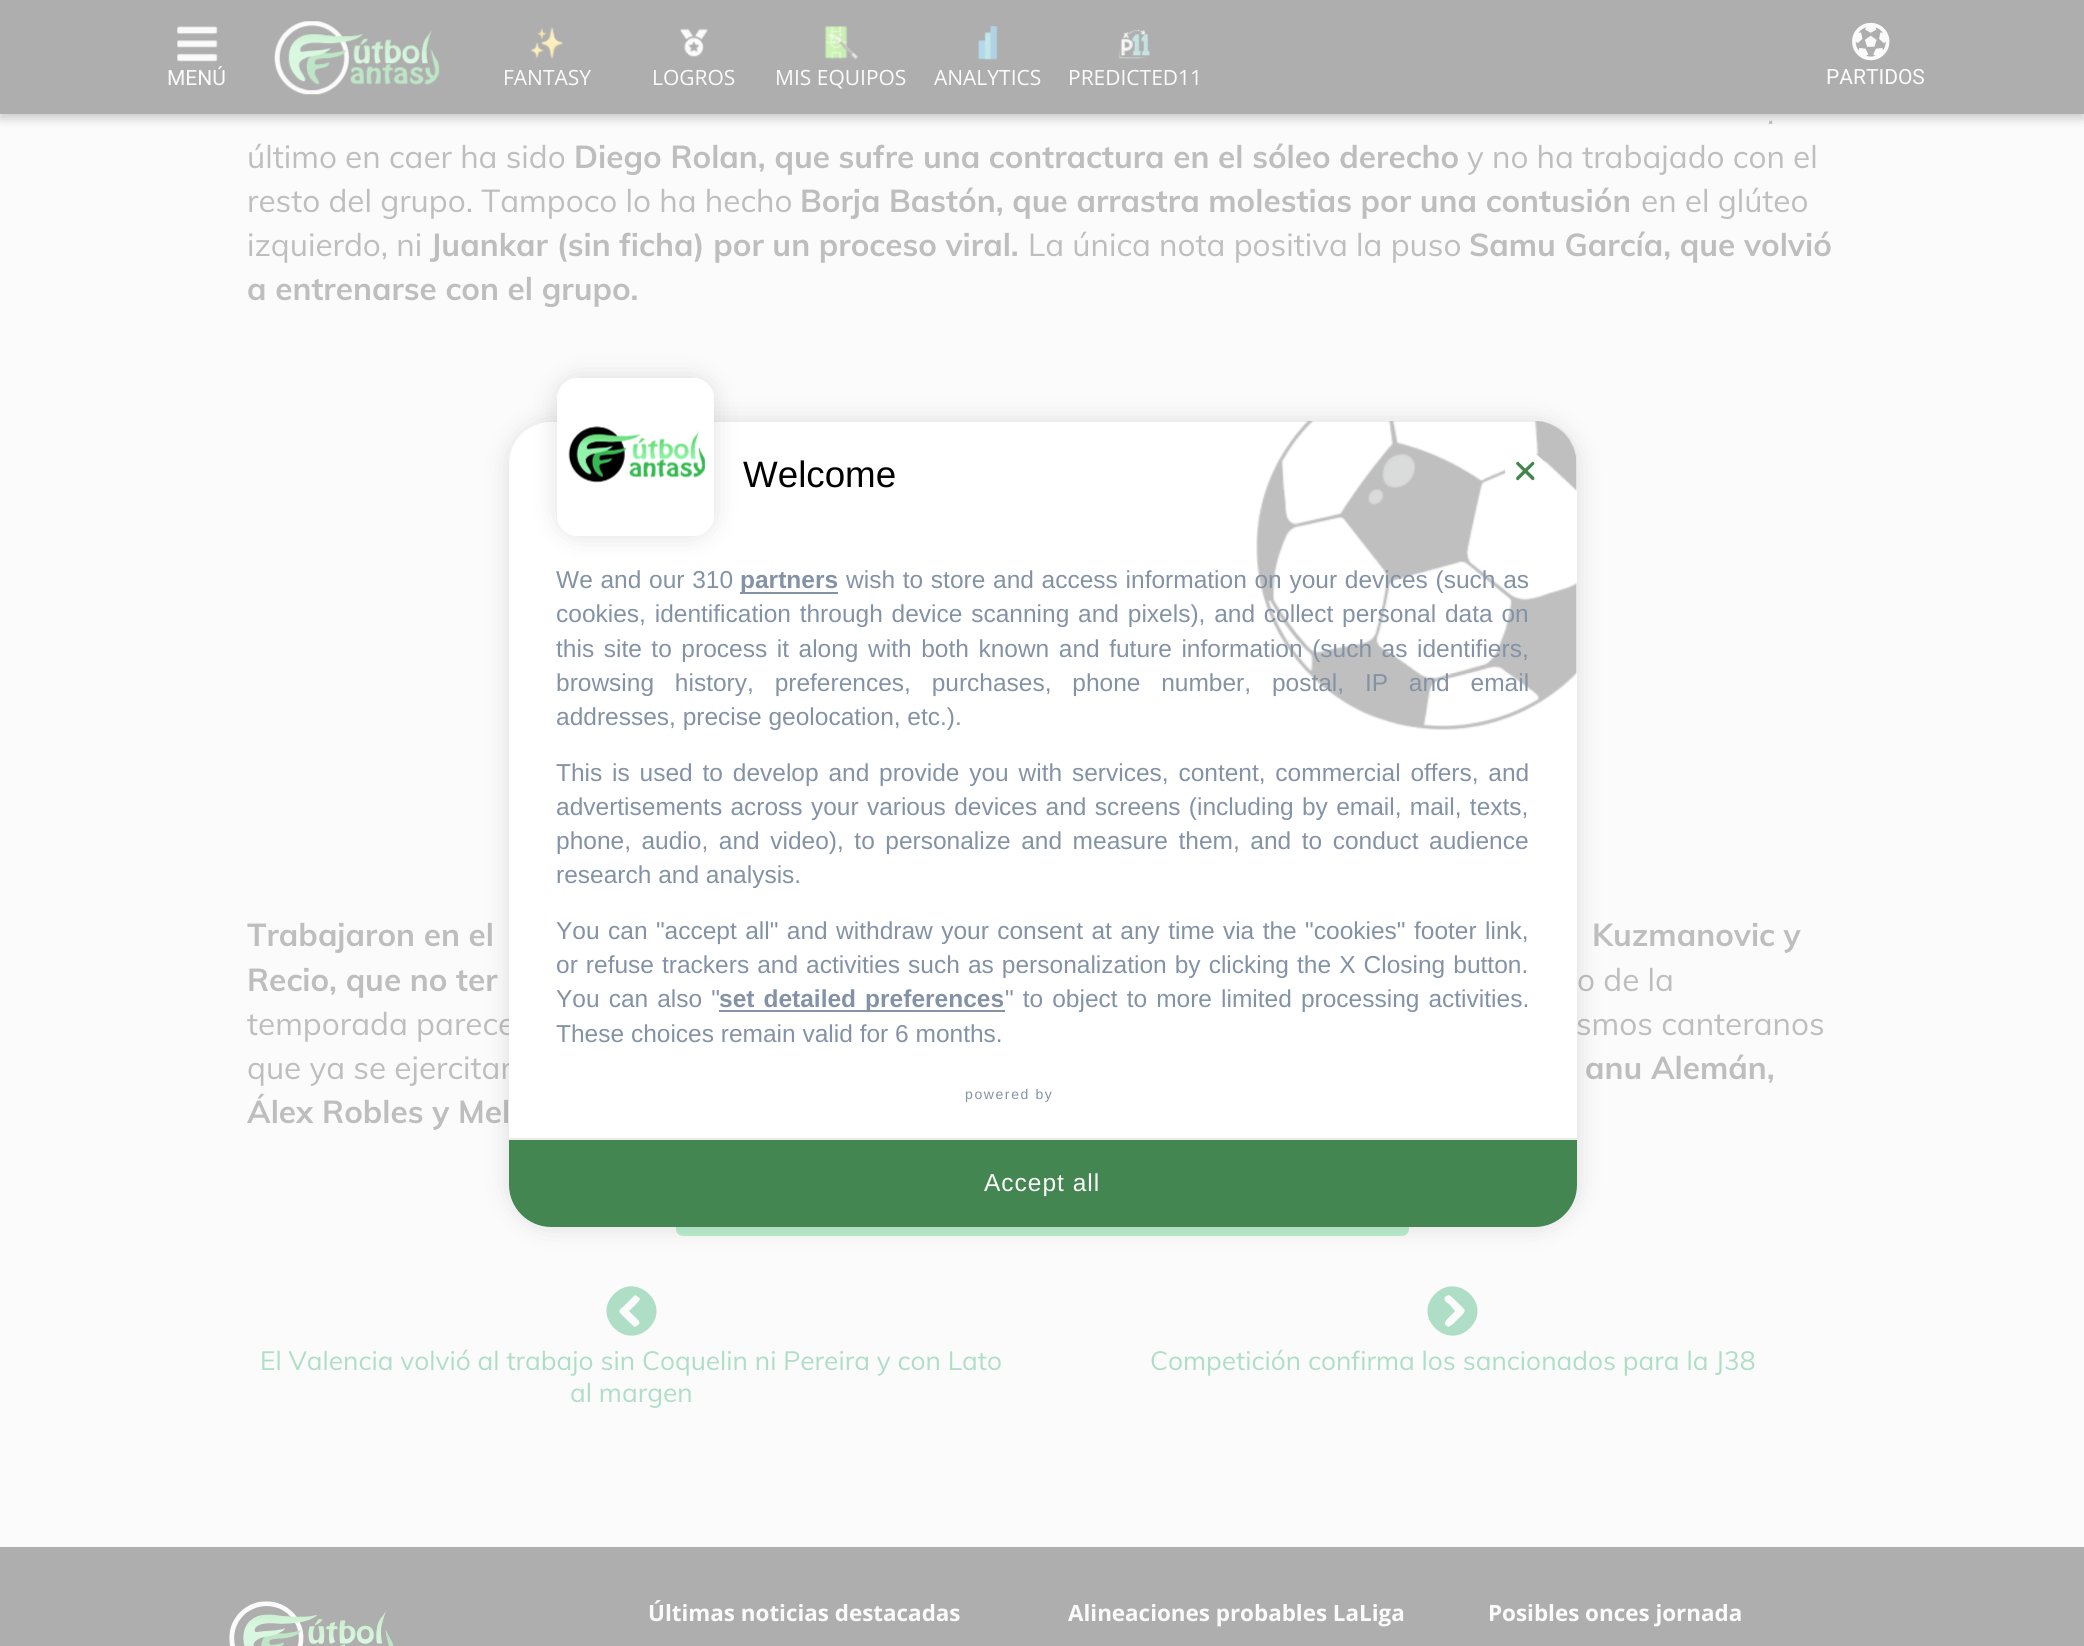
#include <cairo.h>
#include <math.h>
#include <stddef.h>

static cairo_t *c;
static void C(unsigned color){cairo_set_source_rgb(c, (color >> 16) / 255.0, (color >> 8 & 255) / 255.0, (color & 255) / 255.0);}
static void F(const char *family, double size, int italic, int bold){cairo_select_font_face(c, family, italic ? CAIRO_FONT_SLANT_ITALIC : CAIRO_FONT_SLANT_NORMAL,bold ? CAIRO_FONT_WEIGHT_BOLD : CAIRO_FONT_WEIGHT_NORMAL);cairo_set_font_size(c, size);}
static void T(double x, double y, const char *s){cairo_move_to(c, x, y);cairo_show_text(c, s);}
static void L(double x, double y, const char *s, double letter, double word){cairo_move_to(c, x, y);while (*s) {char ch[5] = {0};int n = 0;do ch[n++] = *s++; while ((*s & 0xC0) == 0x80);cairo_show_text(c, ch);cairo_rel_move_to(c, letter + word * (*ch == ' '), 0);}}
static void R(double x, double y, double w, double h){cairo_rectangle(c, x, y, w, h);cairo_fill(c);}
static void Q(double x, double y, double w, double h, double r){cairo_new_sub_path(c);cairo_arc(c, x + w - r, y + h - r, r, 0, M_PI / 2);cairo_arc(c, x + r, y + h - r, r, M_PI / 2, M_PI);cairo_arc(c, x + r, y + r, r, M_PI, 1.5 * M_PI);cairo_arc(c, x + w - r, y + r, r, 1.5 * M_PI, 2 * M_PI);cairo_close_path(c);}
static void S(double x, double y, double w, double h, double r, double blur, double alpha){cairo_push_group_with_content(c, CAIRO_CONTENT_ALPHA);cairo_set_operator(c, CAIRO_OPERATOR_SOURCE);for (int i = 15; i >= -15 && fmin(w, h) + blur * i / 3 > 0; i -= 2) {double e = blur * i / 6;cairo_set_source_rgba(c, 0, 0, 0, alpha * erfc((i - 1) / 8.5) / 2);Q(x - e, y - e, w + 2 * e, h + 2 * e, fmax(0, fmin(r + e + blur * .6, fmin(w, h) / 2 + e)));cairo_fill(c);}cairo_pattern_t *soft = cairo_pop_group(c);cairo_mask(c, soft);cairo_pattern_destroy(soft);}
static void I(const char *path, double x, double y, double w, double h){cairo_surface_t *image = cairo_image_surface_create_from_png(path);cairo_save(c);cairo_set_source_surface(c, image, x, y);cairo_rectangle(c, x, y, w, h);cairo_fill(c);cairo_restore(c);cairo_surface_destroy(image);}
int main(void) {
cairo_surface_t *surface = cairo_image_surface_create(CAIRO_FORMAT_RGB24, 2084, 1646);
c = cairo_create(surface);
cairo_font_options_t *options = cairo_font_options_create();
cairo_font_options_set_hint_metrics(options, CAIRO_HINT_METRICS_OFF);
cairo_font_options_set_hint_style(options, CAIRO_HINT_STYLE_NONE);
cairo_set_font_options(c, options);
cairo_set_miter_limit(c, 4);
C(0xfbfbfb);
cairo_paint(c);
C(0xaeaeae);
S(0,5,2084,114,0,4.5,.6);
C(0xaeaeae);
R(0,0,2084,114);
I("1.png",177,26,41,36);
F("Roboto",21,0,0);
C(0xfbfbfb);
T(167,85,"MENÚ");
I("2.png",274,21,166,74);
I("3.png",530,27,33,32);
F("Open Sans",21,0,0);
T(503,85,"FANTASY");
I("4.png",680,28,28,30);
T(652,85,"LOGROS");
I("5.png",824,26,34,34);
T(775,85,"MIS EQUIPOS");
I("6.png",977,26,21,34);
T(934,85,"ANALYTICS");
I("7.png",1118,29,32,30);
T(1068,85,"PREDICTED11");
I("8.png",1852,22,38,39);
F("Roboto",21,0,0);
T(1826,84,"PARTIDOS");
F("Muli",31.5,0,0);
C(0xbebebe);
T(1767,124,".");
T(247,168,"último en caer ha sido");
F("Muli",31.5,0,1);
T(574,168,"Diego Rolan, que sufre una contractura en el sóleo derecho");
F("Muli",31.5,0,0);
T(1467,168,"y no ha trabajado con el");
T(247,212,"resto del grupo. Tampoco lo ha hecho");
F("Muli",31.5,0,1);
T(800,212,"Borja Bastón, que arrastra molestias por una contusión");
F("Muli",31.5,0,0);
T(1641,212,"en el glúteo");
T(247,256,"izquierdo, ni");
F("Muli",31.5,0,1);
T(430,256,"Juankar (sin ficha) por un proceso viral.");
F("Muli",31.5,0,0);
T(1028,256,"La única nota positiva la puso");
F("Muli",31.5,0,1);
T(1469,256,"Samu García, que volvió");
T(247,300,"a entrenarse con el grupo.");
T(247,946,"Trabajaron en el");
T(1592,946,"Kuzmanovic y");
T(247,991,"Recio, que no ter");
F("Muli",31.5,0,0);
T(1577,991,"o de la");
T(247,1035,"temporada parece");
T(1576,1035,"smos canteranos");
T(247,1079,"que ya se ejercitar");
F("Muli",31.5,0,1);
T(1585,1079,"anu Alemán,");
T(247,1123,"Álex Robles y Mel");
C(0xb9eecd);
Q(676,1174,733,62,7);
cairo_fill(c);
C(0xaedec6);
cairo_new_path(c);
cairo_move_to(c,649,1328);
cairo_curve_to(c,626,1351,591,1317,614,1294);
cairo_curve_to(c,637,1271,672,1305,649,1328);
cairo_close_path(c);
cairo_move_to(c,620,1313);
cairo_line_to(c,629,1322);
cairo_curve_to(c,634,1326,634,1329,639,1324);
cairo_curve_to(c,641,1322,637,1319,636,1318);
cairo_line_to(c,629,1311);
cairo_curve_to(c,631,1309,639,1302,640,1299);
cairo_curve_to(c,640,1298,638,1297,637,1296);
cairo_curve_to(c,635,1294,633,1297,632,1298);
cairo_line_to(c,623,1307);
cairo_curve_to(c,621,1308,618,1311,620,1313);
cairo_close_path(c);
cairo_fill(c);
F("Muli",26.25,0,0);
T(260,1370,"El Valencia volvió al trabajo sin Coquelin ni Pereira y con Lato");
T(570,1402,"al margen");
cairo_new_path(c);
cairo_move_to(c,1435,1294);
cairo_curve_to(c,1458,1271,1493,1305,1470,1328);
cairo_curve_to(c,1447,1351,1412,1317,1435,1294);
cairo_close_path(c);
cairo_move_to(c,1464,1309);
cairo_line_to(c,1455,1300);
cairo_curve_to(c,1450,1296,1450,1293,1445,1297);
cairo_curve_to(c,1443,1300,1447,1303,1449,1304);
cairo_line_to(c,1455,1311);
cairo_curve_to(c,1454,1313,1445,1320,1445,1323);
cairo_curve_to(c,1444,1324,1446,1325,1447,1326);
cairo_curve_to(c,1449,1328,1451,1325,1453,1324);
cairo_line_to(c,1462,1315);
cairo_curve_to(c,1463,1314,1466,1311,1464,1309);
cairo_close_path(c);
cairo_fill(c);
T(1150,1370,"Competición confirma los sancionados para la J38");
C(0x000000);
S(509,422,1068,805,42,13,.12);
C(0xffffff);
Q(509,422,1068,805,42);
cairo_fill(c);
C(0x000000);
S(557,378,157,158,21,13,.12);
C(0xffffff);
Q(557,378,157,158,21);
cairo_fill(c);
I("9.png",568,426,137,57);
Q(561.5,382.5,148,149,16.5);
cairo_set_line_width(c,9);
cairo_stroke(c);
I("10.png",1256,421,321,309);
F("Liberation Sans",36.75,0,0);
C(0x000000);
T(743,487,"Welcome");
C(0xffffff);
cairo_new_path(c);
cairo_arc(c,1526,473,21,0,2 * M_PI);
cairo_fill(c);
C(0x41864f);
cairo_new_path(c);
cairo_move_to(c,1519,462.5);
cairo_line_to(c,1534,477);
cairo_curve_to(c,1534.5,478,1534.5,479,1534,479.5);
cairo_curve_to(c,1533,480.5,1532,480.5,1531.5,479.5);
cairo_line_to(c,1516.5,464.5);
cairo_curve_to(c,1516,464,1516,463,1516.5,462.5);
cairo_curve_to(c,1517,461.5,1518.5,461.5,1519,462.5);
cairo_close_path(c);
cairo_fill(c);
cairo_new_path(c);
cairo_move_to(c,1516.5,477);
cairo_line_to(c,1531.5,462.5);
cairo_curve_to(c,1532,461.5,1533,461.5,1534,462.5);
cairo_curve_to(c,1534.5,463,1534.5,464,1534,464.5);
cairo_line_to(c,1519,479.5);
cairo_curve_to(c,1518.5,480.5,1517,480.5,1516.5,479.5);
cairo_curve_to(c,1516,479,1516,478,1516.5,477);
cairo_close_path(c);
cairo_fill(c);
F("Liberation Sans",24.5,0,0);
C(0x8492a6);
L(556,588,"We and our 310",0,.9);
R(740,592,98,2);
F("Liberation Sans",24.5,0,1);
T(740,588,"partners");
F("Liberation Sans",24.5,0,0);
L(846,588,"wish to store and access information on your devices (such as",0,.9);
L(556,622,"cookies, identification through device scanning and pixels), and collect personal data on",0,2);
L(556,657,"this site to process it along with both known and future information (such as identifiers,",0,2.75);
L(556,691,"browsing history, preferences, purchases, phone number, postal, IP and email",0,14);
T(556,725,"addresses, precise geolocation, etc.).");
L(556,781,"This is used to develop and provide you with services, content, commercial offers, and",0,3);
L(556,815,"advertisements across your various devices and screens (including by email, mail, texts,",0,1.5);
L(556,849,"phone, audio, and video), to personalize and measure them, and to conduct audience",0,3.75);
T(556,883,"research and analysis.");
L(556,939,"You can \"accept all\" and withdraw your consent at any time via the \"cookies\" footer link,",0,1.6);
L(556,973,"or refuse trackers and activities such as personalization by clicking the X Closing button.",0,1.25);
L(556,1007,"You can also \"",0,2.25);
R(719,1010,286,2);
F("Liberation Sans",24.5,0,1);
L(719,1007,"set detailed preferences",0,2.25);
F("Liberation Sans",24.5,0,0);
L(1005,1007,"\" to object to more limited processing activities.",0,2.25);
T(556,1042,"These choices remain valid for 6 months.");
F("Liberation Sans",14,0,0);
L(965,1099,"powered by",1.6,0);
C(0x448651);
cairo_new_path(c);
cairo_move_to(c,509,1138);
cairo_line_to(c,1577,1138);
cairo_line_to(c,1577,1185);
cairo_curve_to(c,1577,1208,1558,1227,1535,1227);
cairo_line_to(c,551,1227);
cairo_curve_to(c,528,1227,509,1208,509,1185);
cairo_close_path(c);
cairo_fill(c);
C(0xeaeaea);
R(509,1138,1068,2);
F("Liberation Sans",24.5,0,0);
C(0xfbfbfb);
L(984,1191,"Accept all",1,0);
C(0xaeaeae);
R(0,1547,2084,99);
I("11.png",229,1601,165,45);
F("Open Sans",22.4,0,1);
C(0xfbfbfb);
T(648,1621,"Últimas noticias destacadas");
T(1068,1621,"Alineaciones probables LaLiga");
T(1488,1621,"Posibles onces jornada");
cairo_surface_write_to_png(surface, "o.png");
cairo_font_options_destroy(options);
cairo_destroy(c);
cairo_surface_destroy(surface);
return 0;
}
